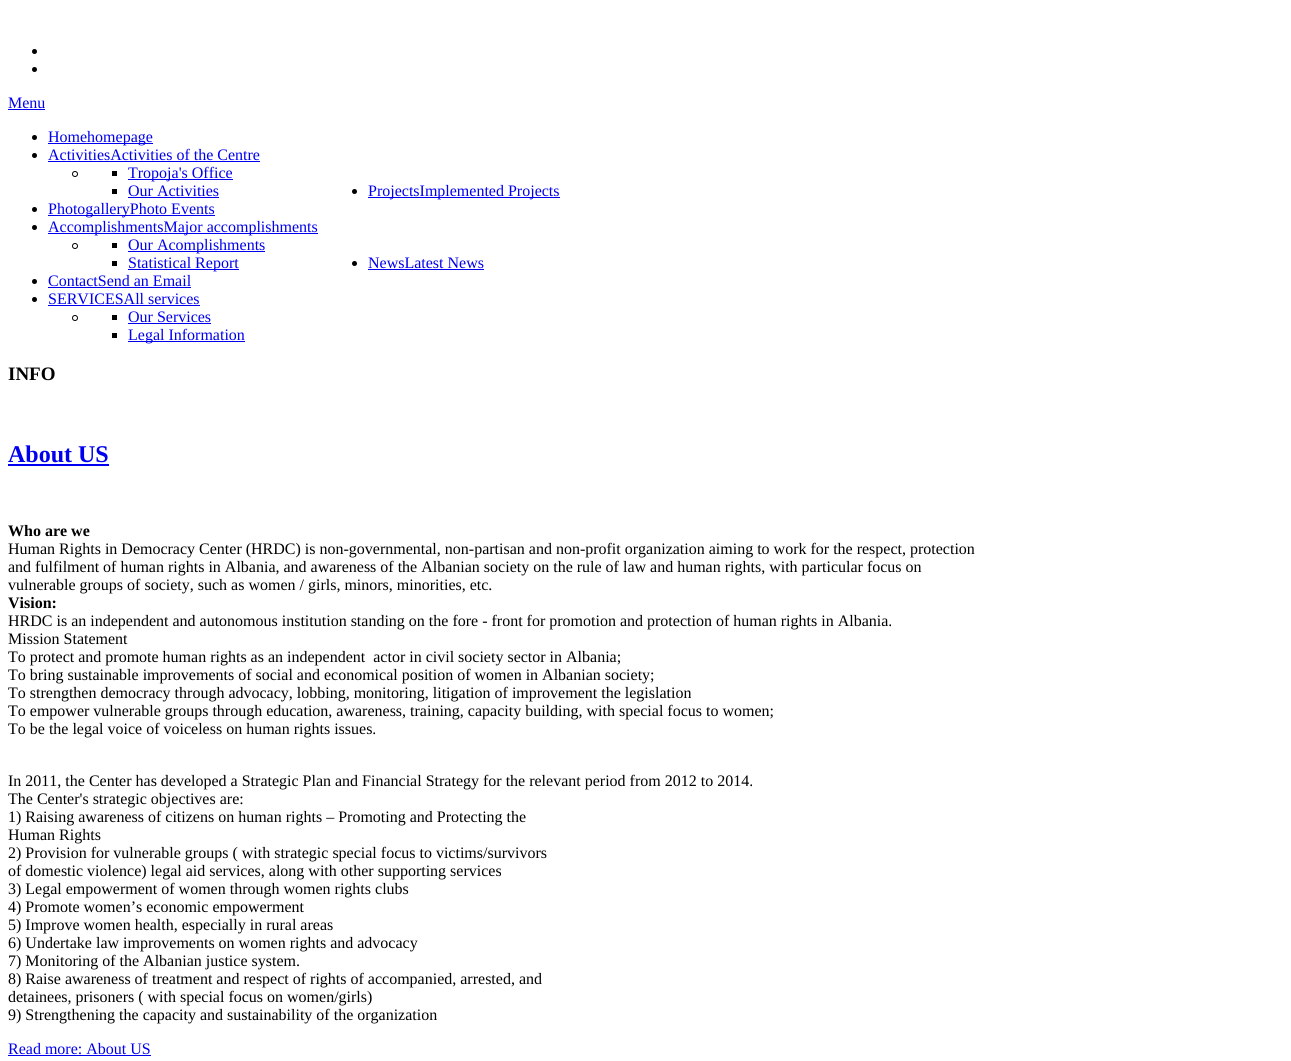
#include <cairo.h>
#include <math.h>
#include <stddef.h>

static cairo_t *c;
static void C(unsigned color){cairo_set_source_rgb(c, (color >> 16) / 255.0, (color >> 8 & 255) / 255.0, (color & 255) / 255.0);}
static void F(const char *family, double size, int italic, int bold){cairo_select_font_face(c, family, italic ? CAIRO_FONT_SLANT_ITALIC : CAIRO_FONT_SLANT_NORMAL,bold ? CAIRO_FONT_WEIGHT_BOLD : CAIRO_FONT_WEIGHT_NORMAL);cairo_set_font_size(c, size);}
static void T(double x, double y, const char *s){cairo_move_to(c, x, y);cairo_show_text(c, s);}
static void R(double x, double y, double w, double h){cairo_rectangle(c, x, y, w, h);cairo_fill(c);}
int main(void) {
cairo_surface_t *surface = cairo_image_surface_create(CAIRO_FORMAT_RGB24, 1291, 1061);
c = cairo_create(surface);
cairo_font_options_t *options = cairo_font_options_create();
cairo_font_options_set_hint_metrics(options, CAIRO_HINT_METRICS_OFF);
cairo_font_options_set_hint_style(options, CAIRO_HINT_STYLE_NONE);
cairo_set_font_options(c, options);
cairo_set_miter_limit(c, 4);
C(0xffffff);
cairo_paint(c);
C(0x000000);
cairo_arc(c,34.5,51.5,2.5,0,2 * M_PI);
cairo_fill(c);
cairo_arc(c,34.5,69.5,2.5,0,2 * M_PI);
cairo_fill(c);
F("Liberation Serif",16,0,0);
C(0x0000ee);
T(8,108,"Menu");
R(8,109,37,1);
C(0x000000);
cairo_new_path(c);
cairo_arc(c,34.5,137.5,2.5,0,2 * M_PI);
cairo_fill(c);
C(0x0000ee);
R(48,143,105,1);
T(48,142,"Homehomepage");
C(0x000000);
cairo_new_path(c);
cairo_arc(c,34.5,155.5,2.5,0,2 * M_PI);
cairo_fill(c);
C(0x0000ee);
T(48,160,"ActivitiesActivities of the Centre");
R(48,161,212,1);
cairo_new_path(c);
cairo_arc(c,75,174,2.5,0,2 * M_PI);
C(0x000000);
cairo_set_line_width(c,1);
cairo_stroke(c);
R(112,171,5,5);
C(0x0000ee);
R(128,179,105,1);
T(128,178,"Tropoja's Office");
C(0x000000);
R(112,189,5,5);
C(0x0000ee);
T(128,196,"Our Activities");
R(128,197,91,1);
C(0x000000);
cairo_new_path(c);
cairo_arc(c,354.5,191.5,2.5,0,2 * M_PI);
cairo_fill(c);
C(0x0000ee);
R(368,197,192,1);
T(368,196,"ProjectsImplemented Projects");
C(0x000000);
cairo_new_path(c);
cairo_arc(c,34.5,209.5,2.5,0,2 * M_PI);
cairo_fill(c);
C(0x0000ee);
R(48,215,167,1);
T(48,214,"PhotogalleryPhoto Events");
C(0x000000);
cairo_new_path(c);
cairo_arc(c,34.5,227.5,2.5,0,2 * M_PI);
cairo_fill(c);
C(0x0000ee);
R(48,233,270,1);
T(48,232,"AccomplishmentsMajor accomplishments");
cairo_new_path(c);
cairo_arc(c,75,246,2.5,0,2 * M_PI);
C(0x000000);
cairo_stroke(c);
R(112,243,5,5);
C(0x0000ee);
R(128,251,137,1);
T(128,250,"Our Acomplishments");
C(0x000000);
R(112,261,5,5);
C(0x0000ee);
R(128,269,111,1);
T(128,268,"Statistical Report");
C(0x000000);
cairo_new_path(c);
cairo_arc(c,354.5,263.5,2.5,0,2 * M_PI);
cairo_fill(c);
C(0x0000ee);
T(368,268,"NewsLatest News");
R(368,269,116,1);
C(0x000000);
cairo_new_path(c);
cairo_arc(c,34.5,281.5,2.5,0,2 * M_PI);
cairo_fill(c);
C(0x0000ee);
T(48,286,"ContactSend an Email");
R(48,287,143,1);
C(0x000000);
cairo_new_path(c);
cairo_arc(c,34.5,299.5,2.5,0,2 * M_PI);
cairo_fill(c);
C(0x0000ee);
T(48,304,"SERVICESAll services");
R(48,305,152,1);
cairo_new_path(c);
cairo_arc(c,75,318,2.5,0,2 * M_PI);
C(0x000000);
cairo_stroke(c);
R(112,315,5,5);
C(0x0000ee);
T(128,322,"Our Services");
R(128,323,83,1);
C(0x000000);
R(112,333,5,5);
C(0x0000ee);
R(128,341,117,1);
T(128,340,"Legal Information");
F("Liberation Serif",19,0,1);
C(0x000000);
T(8,380,"INFO");
F("Liberation Serif",24,0,1);
C(0x0000ee);
T(8,462,"About US");
R(8,464,101,2);
F("Liberation Serif",16,0,1);
C(0x000000);
T(8,536,"Who are we");
F("Liberation Serif",16,0,0);
T(8,554,"Human Rights in Democracy Center (HRDC) is non-governmental, non-partisan and non-profit organization aiming to work for the respect, protection");
T(8,572,"and fulfilment of human rights in Albania, and awareness of the Albanian society on the rule of law and human rights, with particular focus on");
T(8,590,"vulnerable groups of society, such as women / girls, minors, minorities, etc.");
F("Liberation Serif",16,0,1);
T(8,608,"Vision:");
F("Liberation Serif",16,0,0);
T(8,626,"HRDC is an independent and autonomous institution standing on the fore - front for promotion and protection of human rights in Albania.");
T(8,644,"Mission Statement");
T(8,662,"To protect and promote human rights as an independent  actor in civil society sector in Albania;");
T(8,680,"To bring sustainable improvements of social and economical position of women in Albanian society;");
T(8,698,"To strengthen democracy through advocacy, lobbing, monitoring, litigation of improvement the legislation");
T(8,716,"To empower vulnerable groups through education, awareness, training, capacity building, with special focus to women;");
T(8,734,"To be the legal voice of voiceless on human rights issues.");
T(8,786,"In 2011, the Center has developed a Strategic Plan and Financial Strategy for the relevant period from 2012 to 2014.");
T(8,804,"The Center's strategic objectives are:");
T(8,822,"1) Raising awareness of citizens on human rights – Promoting and Protecting the");
T(8,840,"Human Rights");
T(8,858,"2) Provision for vulnerable groups ( with strategic special focus to victims/survivors");
T(8,876,"of domestic violence) legal aid services, along with other supporting services");
T(8,894,"3) Legal empowerment of women through women rights clubs");
T(8,912,"4) Promote women’s economic empowerment");
T(8,930,"5) Improve women health, especially in rural areas");
T(8,948,"6) Undertake law improvements on women rights and advocacy");
T(8,966,"7) Monitoring of the Albanian justice system.");
T(8,984,"8) Raise awareness of treatment and respect of rights of accompanied, arrested, and");
T(8,1002,"detainees, prisoners ( with special focus on women/girls)");
T(8,1020,"9) Strengthening the capacity and sustainability of the organization");
C(0x0000ee);
T(8,1054,"Read more: About US");
R(8,1055,143,1);
cairo_surface_write_to_png(surface, "o.png");
cairo_font_options_destroy(options);
cairo_destroy(c);
cairo_surface_destroy(surface);
return 0;
}
